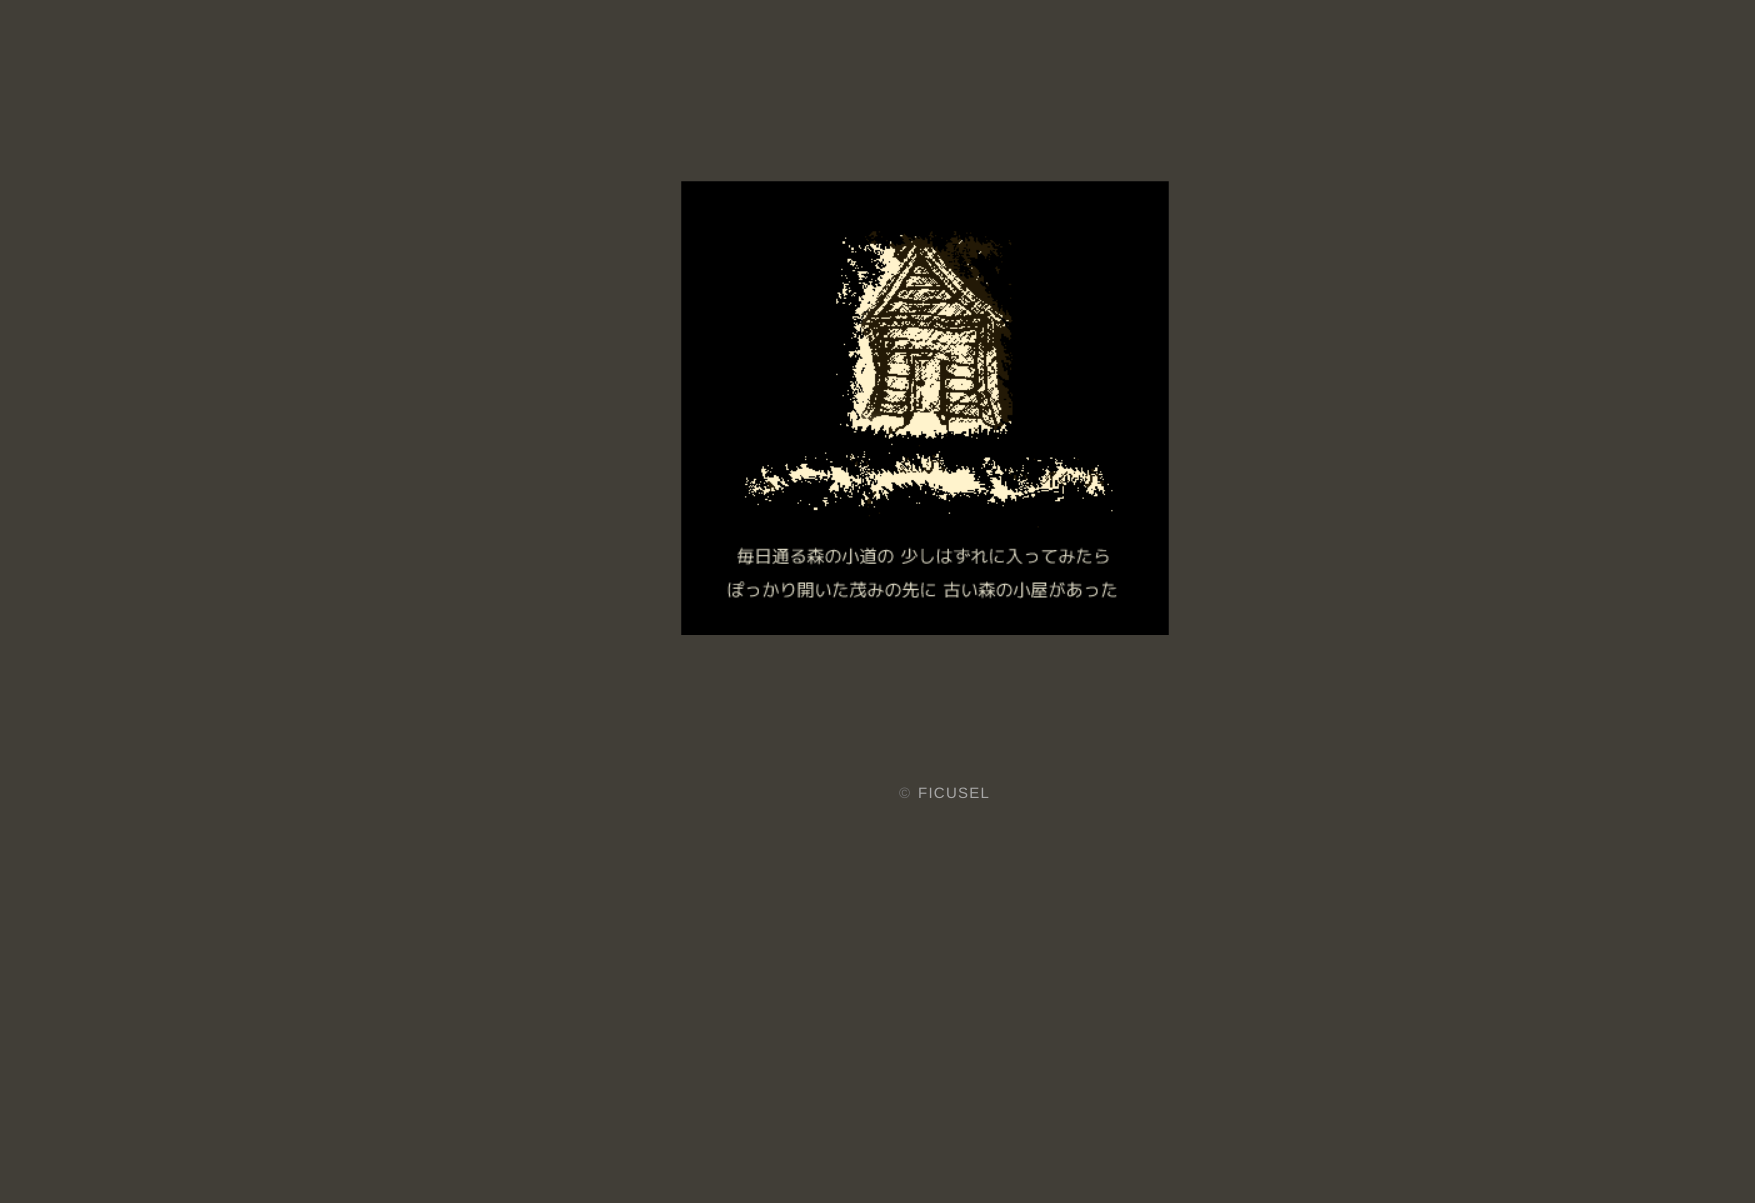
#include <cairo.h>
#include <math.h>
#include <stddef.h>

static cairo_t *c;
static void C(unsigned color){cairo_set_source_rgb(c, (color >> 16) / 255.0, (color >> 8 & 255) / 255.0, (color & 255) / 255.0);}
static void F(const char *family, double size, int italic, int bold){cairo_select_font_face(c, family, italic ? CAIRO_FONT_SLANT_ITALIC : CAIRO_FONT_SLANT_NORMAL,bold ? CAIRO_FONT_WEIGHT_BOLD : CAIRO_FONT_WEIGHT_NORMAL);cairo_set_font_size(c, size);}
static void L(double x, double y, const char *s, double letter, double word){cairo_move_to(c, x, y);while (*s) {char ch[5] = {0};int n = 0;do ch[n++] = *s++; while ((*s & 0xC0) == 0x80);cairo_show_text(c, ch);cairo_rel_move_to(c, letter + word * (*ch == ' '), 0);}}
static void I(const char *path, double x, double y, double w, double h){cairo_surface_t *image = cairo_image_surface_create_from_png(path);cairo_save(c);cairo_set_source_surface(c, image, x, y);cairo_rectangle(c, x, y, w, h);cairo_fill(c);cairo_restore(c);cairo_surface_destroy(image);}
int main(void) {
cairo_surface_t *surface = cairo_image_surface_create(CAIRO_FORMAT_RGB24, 1755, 1203);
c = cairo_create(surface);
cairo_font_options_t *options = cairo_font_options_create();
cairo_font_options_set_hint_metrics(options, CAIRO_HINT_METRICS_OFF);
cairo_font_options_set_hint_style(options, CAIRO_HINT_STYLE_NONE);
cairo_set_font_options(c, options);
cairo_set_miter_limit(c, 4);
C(0x413e37);
cairo_paint(c);
I("1.png",681,181,488,454);
F("Liberation Sans",15,0,0);
C(0x707070);
L(899,798,"©",1.25,0);
C(0xa7a7a7);
L(918,798,"FICUSEL",1.25,0);
cairo_surface_write_to_png(surface, "o.png");
cairo_font_options_destroy(options);
cairo_destroy(c);
cairo_surface_destroy(surface);
return 0;
}
